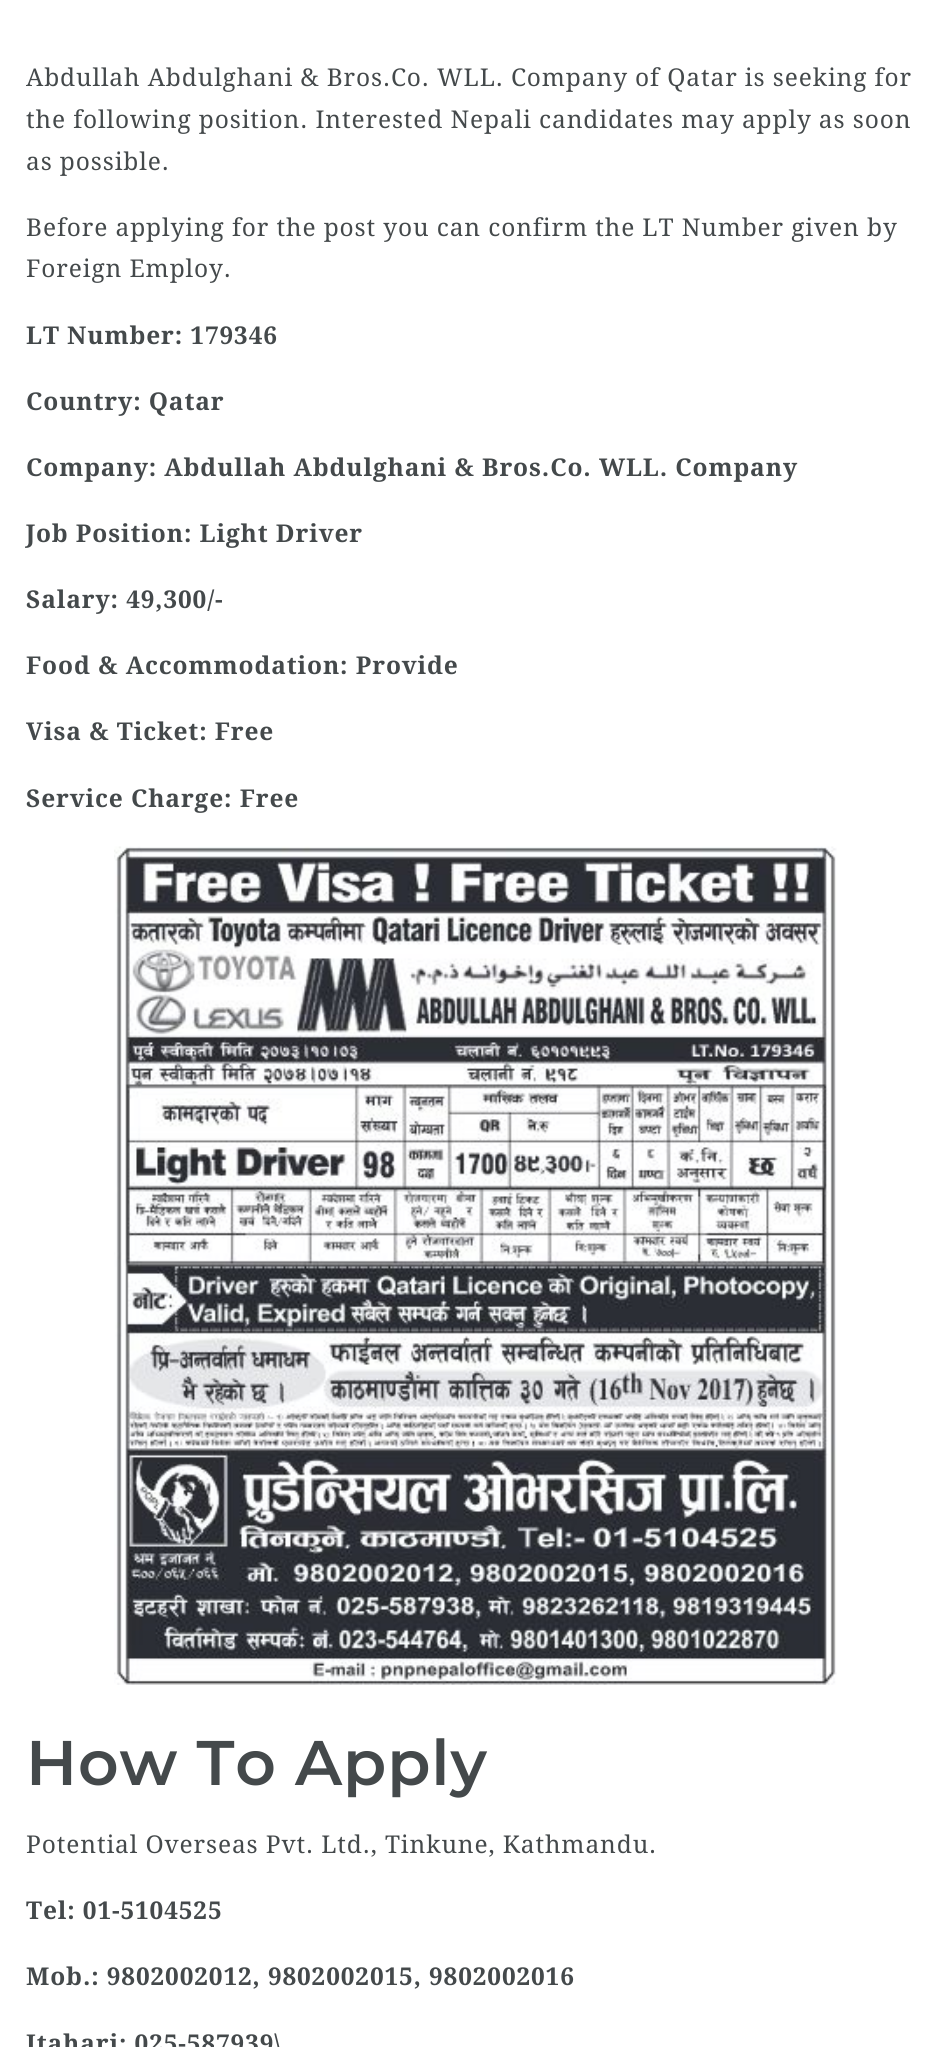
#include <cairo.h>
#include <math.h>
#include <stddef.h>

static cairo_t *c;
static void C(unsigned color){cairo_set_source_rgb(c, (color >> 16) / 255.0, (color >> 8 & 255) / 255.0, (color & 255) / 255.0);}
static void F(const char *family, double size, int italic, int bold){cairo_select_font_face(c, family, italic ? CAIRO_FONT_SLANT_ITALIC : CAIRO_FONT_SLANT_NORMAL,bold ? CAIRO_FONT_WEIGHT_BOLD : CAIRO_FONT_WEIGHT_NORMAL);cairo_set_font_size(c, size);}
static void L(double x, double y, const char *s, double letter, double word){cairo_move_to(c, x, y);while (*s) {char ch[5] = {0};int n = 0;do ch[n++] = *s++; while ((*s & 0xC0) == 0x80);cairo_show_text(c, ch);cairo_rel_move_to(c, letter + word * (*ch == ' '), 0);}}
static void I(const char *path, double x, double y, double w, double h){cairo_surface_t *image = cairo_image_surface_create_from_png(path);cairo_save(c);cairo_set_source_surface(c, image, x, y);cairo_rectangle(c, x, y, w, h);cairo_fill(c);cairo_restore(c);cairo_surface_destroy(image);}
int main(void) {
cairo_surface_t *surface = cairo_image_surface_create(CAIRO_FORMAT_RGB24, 947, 2047);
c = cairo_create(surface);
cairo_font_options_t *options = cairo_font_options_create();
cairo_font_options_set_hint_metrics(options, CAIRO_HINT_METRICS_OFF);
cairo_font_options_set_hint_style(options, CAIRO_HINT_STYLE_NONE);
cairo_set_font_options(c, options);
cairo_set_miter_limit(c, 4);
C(0xffffff);
cairo_paint(c);
F("Droid Serif",24.5,0,0);
C(0x44494b);
L(26,86,"Abdullah Abdulghani & Bros.Co. WLL. Company of Qatar is seeking for",.88,0);
L(26,128,"the following position. Interested Nepali candidates may apply as soon",.88,0);
L(26,170,"as possible.",.88,0);
L(26,236,"Before applying for the post you can confirm the LT Number given by",.88,0);
L(26,277,"Foreign Employ.",.88,0);
F("Droid Serif",24.5,0,1);
L(26,344,"LT Number: 179346",.88,0);
L(26,410,"Country: Qatar",.88,0);
L(26,476,"Company: Abdullah Abdulghani & Bros.Co. WLL. Company",.88,0);
L(26,542,"Job Position: Light Driver",.88,0);
L(26,608,"Salary: 49,300/-",.88,0);
L(26,674,"Food & Accommodation: Provide",.88,0);
L(26,740,"Visa & Ticket: Free",.88,0);
L(26,807,"Service Charge: Free",.88,0);
I("1.png",114,846,723,839);
F("Montserrat SemiBold",63,0,0);
L(26,1785,"How To Apply",.88,0);
F("Droid Serif",24.5,0,0);
L(26,1853,"Potential Overseas Pvt. Ltd., Tinkune, Kathmandu.",.88,0);
F("Droid Serif",24.5,0,1);
L(26,1919,"Tel: 01-5104525",.88,0);
L(26,1985,"Mob.: 9802002012, 9802002015, 9802002016",.88,0);
L(26,2052,"Itahari: 025-587939\\",.88,0);
cairo_surface_write_to_png(surface, "o.png");
cairo_font_options_destroy(options);
cairo_destroy(c);
cairo_surface_destroy(surface);
return 0;
}
